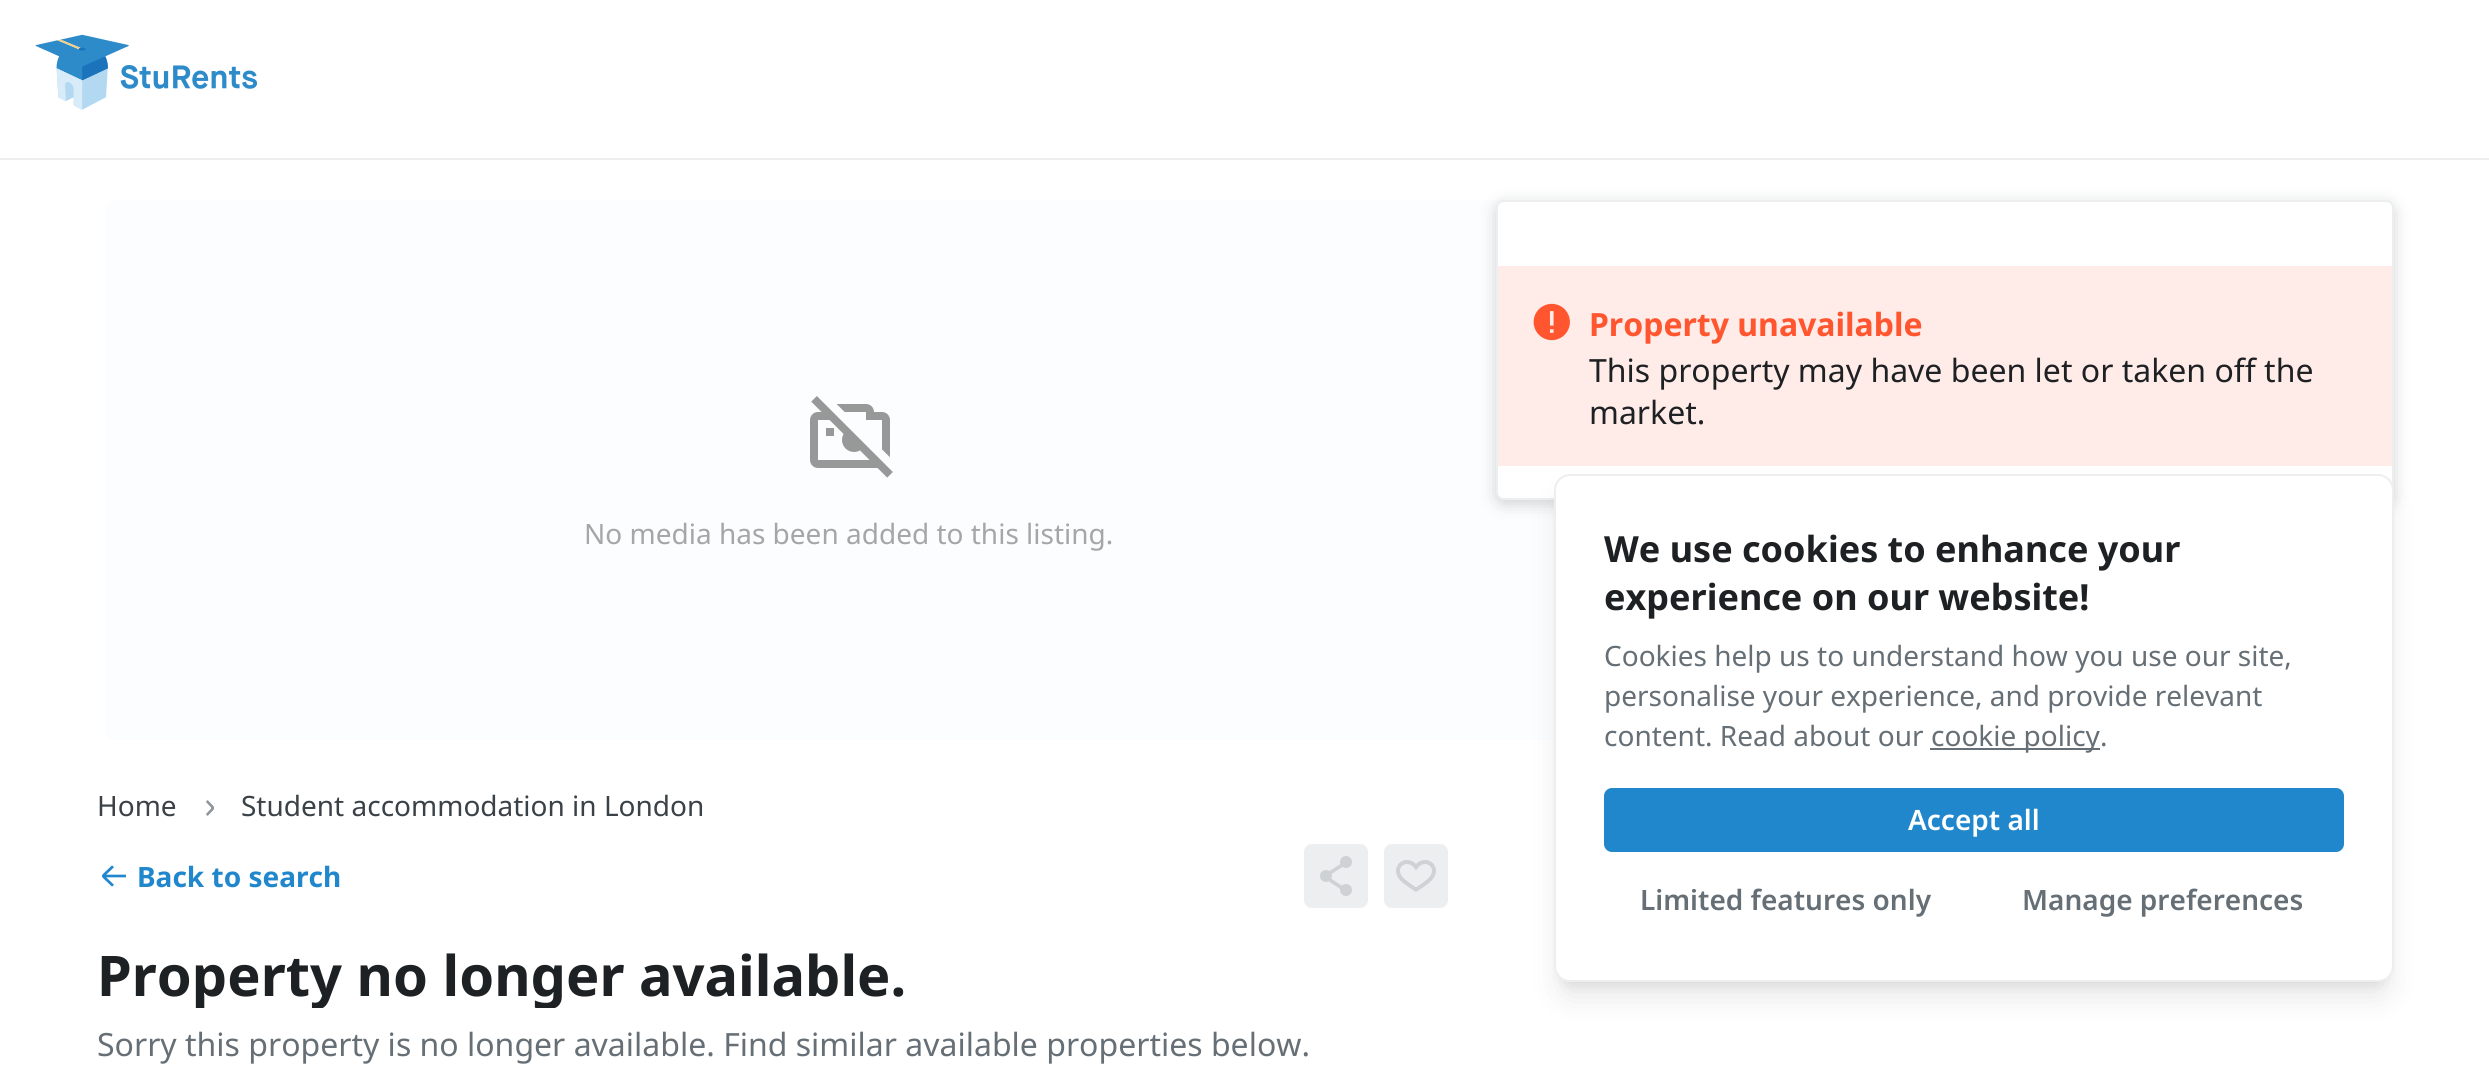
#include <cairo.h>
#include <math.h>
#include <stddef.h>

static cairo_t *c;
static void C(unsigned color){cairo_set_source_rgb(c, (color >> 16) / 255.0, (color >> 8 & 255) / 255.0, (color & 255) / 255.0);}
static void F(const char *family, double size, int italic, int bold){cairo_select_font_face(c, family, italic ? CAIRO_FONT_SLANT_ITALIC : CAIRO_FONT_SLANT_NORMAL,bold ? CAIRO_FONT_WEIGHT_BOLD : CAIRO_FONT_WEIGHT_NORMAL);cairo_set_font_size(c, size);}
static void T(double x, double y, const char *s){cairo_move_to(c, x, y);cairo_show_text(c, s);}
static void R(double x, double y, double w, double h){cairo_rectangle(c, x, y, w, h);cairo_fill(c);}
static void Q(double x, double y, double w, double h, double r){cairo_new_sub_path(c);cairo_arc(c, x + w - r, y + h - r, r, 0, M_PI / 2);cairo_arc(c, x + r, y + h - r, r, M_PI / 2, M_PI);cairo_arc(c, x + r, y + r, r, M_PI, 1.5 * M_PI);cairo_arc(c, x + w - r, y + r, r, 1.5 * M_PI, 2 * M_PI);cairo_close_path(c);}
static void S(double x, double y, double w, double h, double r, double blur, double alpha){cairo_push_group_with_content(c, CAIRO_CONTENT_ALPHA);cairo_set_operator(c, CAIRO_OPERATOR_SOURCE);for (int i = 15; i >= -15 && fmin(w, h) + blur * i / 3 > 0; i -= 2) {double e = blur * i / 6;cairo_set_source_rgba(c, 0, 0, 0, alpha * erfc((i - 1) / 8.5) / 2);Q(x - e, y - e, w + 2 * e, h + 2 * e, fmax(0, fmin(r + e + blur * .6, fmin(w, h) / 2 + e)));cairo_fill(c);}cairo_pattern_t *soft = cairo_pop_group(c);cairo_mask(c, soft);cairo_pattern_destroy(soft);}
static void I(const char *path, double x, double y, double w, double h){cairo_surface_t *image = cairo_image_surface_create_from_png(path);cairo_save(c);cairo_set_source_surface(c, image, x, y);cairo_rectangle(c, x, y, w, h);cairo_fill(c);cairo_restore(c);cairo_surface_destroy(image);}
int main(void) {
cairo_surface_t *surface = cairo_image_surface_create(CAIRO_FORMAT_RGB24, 2489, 1077);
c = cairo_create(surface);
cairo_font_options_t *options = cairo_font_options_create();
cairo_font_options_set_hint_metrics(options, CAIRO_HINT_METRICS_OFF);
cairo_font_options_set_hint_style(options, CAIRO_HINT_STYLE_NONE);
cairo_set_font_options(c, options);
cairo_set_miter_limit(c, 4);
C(0xffffff);
cairo_paint(c);
C(0xeceef0);
R(0,158,2489,2);
I("1.png",35,34,222,76);
C(0xfcfdfe);
Q(106,200,1488,540,8);
cairo_fill(c);
C(0x1e2124);
S(1496,204,898,300,8,8,.2);
C(0xffffff);
Q(1497,201,896,298,7);
cairo_fill_preserve(c);
C(0xeceef0);
cairo_stroke(c);
C(0xffebe7);
R(1498,266,894,200);
I("2.png",1533,303,37,38);
F("Noto Sans",32,0,1);
C(0xff5630);
T(1589,336,"Property unavailable");
F("Noto Sans",32,0,0);
C(0x1e2124);
T(1589,382,"This property may have been let or taken off the");
T(1589,424,"market.");
F("Noto Sans",28,0,0);
C(0x3b4247);
T(97,816,"Home");
I("3.png",206,800,9,16);
T(241,816,"Student accommodation in London");
I("4.png",102,865,24,22);
F("Noto Sans",28,0,1);
C(0x2087cc);
T(137,887,"Back to search");
C(0xeceef0);
Q(1304,844,64,64,8);
cairo_fill(c);
I("5.png",1320,856,32,40);
Q(1384,844,64,64,8);
cairo_fill(c);
I("6.png",1396,860,40,32);
cairo_save(c);
cairo_rectangle(c,98,940,1350,68);
cairo_clip(c);
F("Noto Sans",56,0,1);
C(0x1e2124);
T(97,996,"Property no longer available.");
cairo_restore(c);
F("Noto Sans",32,0,0);
C(0x666f75);
T(97,1056,"Sorry this property is no longer available. Find similar available properties below.");
I("7.png",810,396,83,82);
F("Noto Sans",28,0,0);
C(0xa5a6a7);
T(584,544,"No media has been added to this listing.");
C(0x000000);
S(1562,490,824,492,8,6,.1);
S(1560,500,828,496,10,15,.1);
C(0xffffff);
Q(1555,475,838,506,15);
cairo_fill_preserve(c);
C(0xeceef0);
cairo_stroke(c);
F("Noto Sans",36,0,1);
C(0x1e2124);
T(1604,562,"We use cookies to enhance your");
T(1604,610,"experience on our website!");
F("Noto Sans",28,0,0);
C(0x666f75);
T(1604,666,"Cookies help us to understand how you use our site,");
T(1604,706,"personalise your experience, and provide relevant");
T(1604,746,"content. Read about our");
R(1930,748,170,2);
T(1931,746,"cookie policy.");
C(0x2087cc);
Q(1604,788,740,64,8);
cairo_fill(c);
F("Noto Sans SemiBold",28,0,0);
C(0xffffff);
T(1908,830,"Accept all");
C(0x666f75);
T(1640,910,"Limited features only");
T(2022,910,"Manage preferences");
cairo_surface_write_to_png(surface, "o.png");
cairo_font_options_destroy(options);
cairo_destroy(c);
cairo_surface_destroy(surface);
return 0;
}
